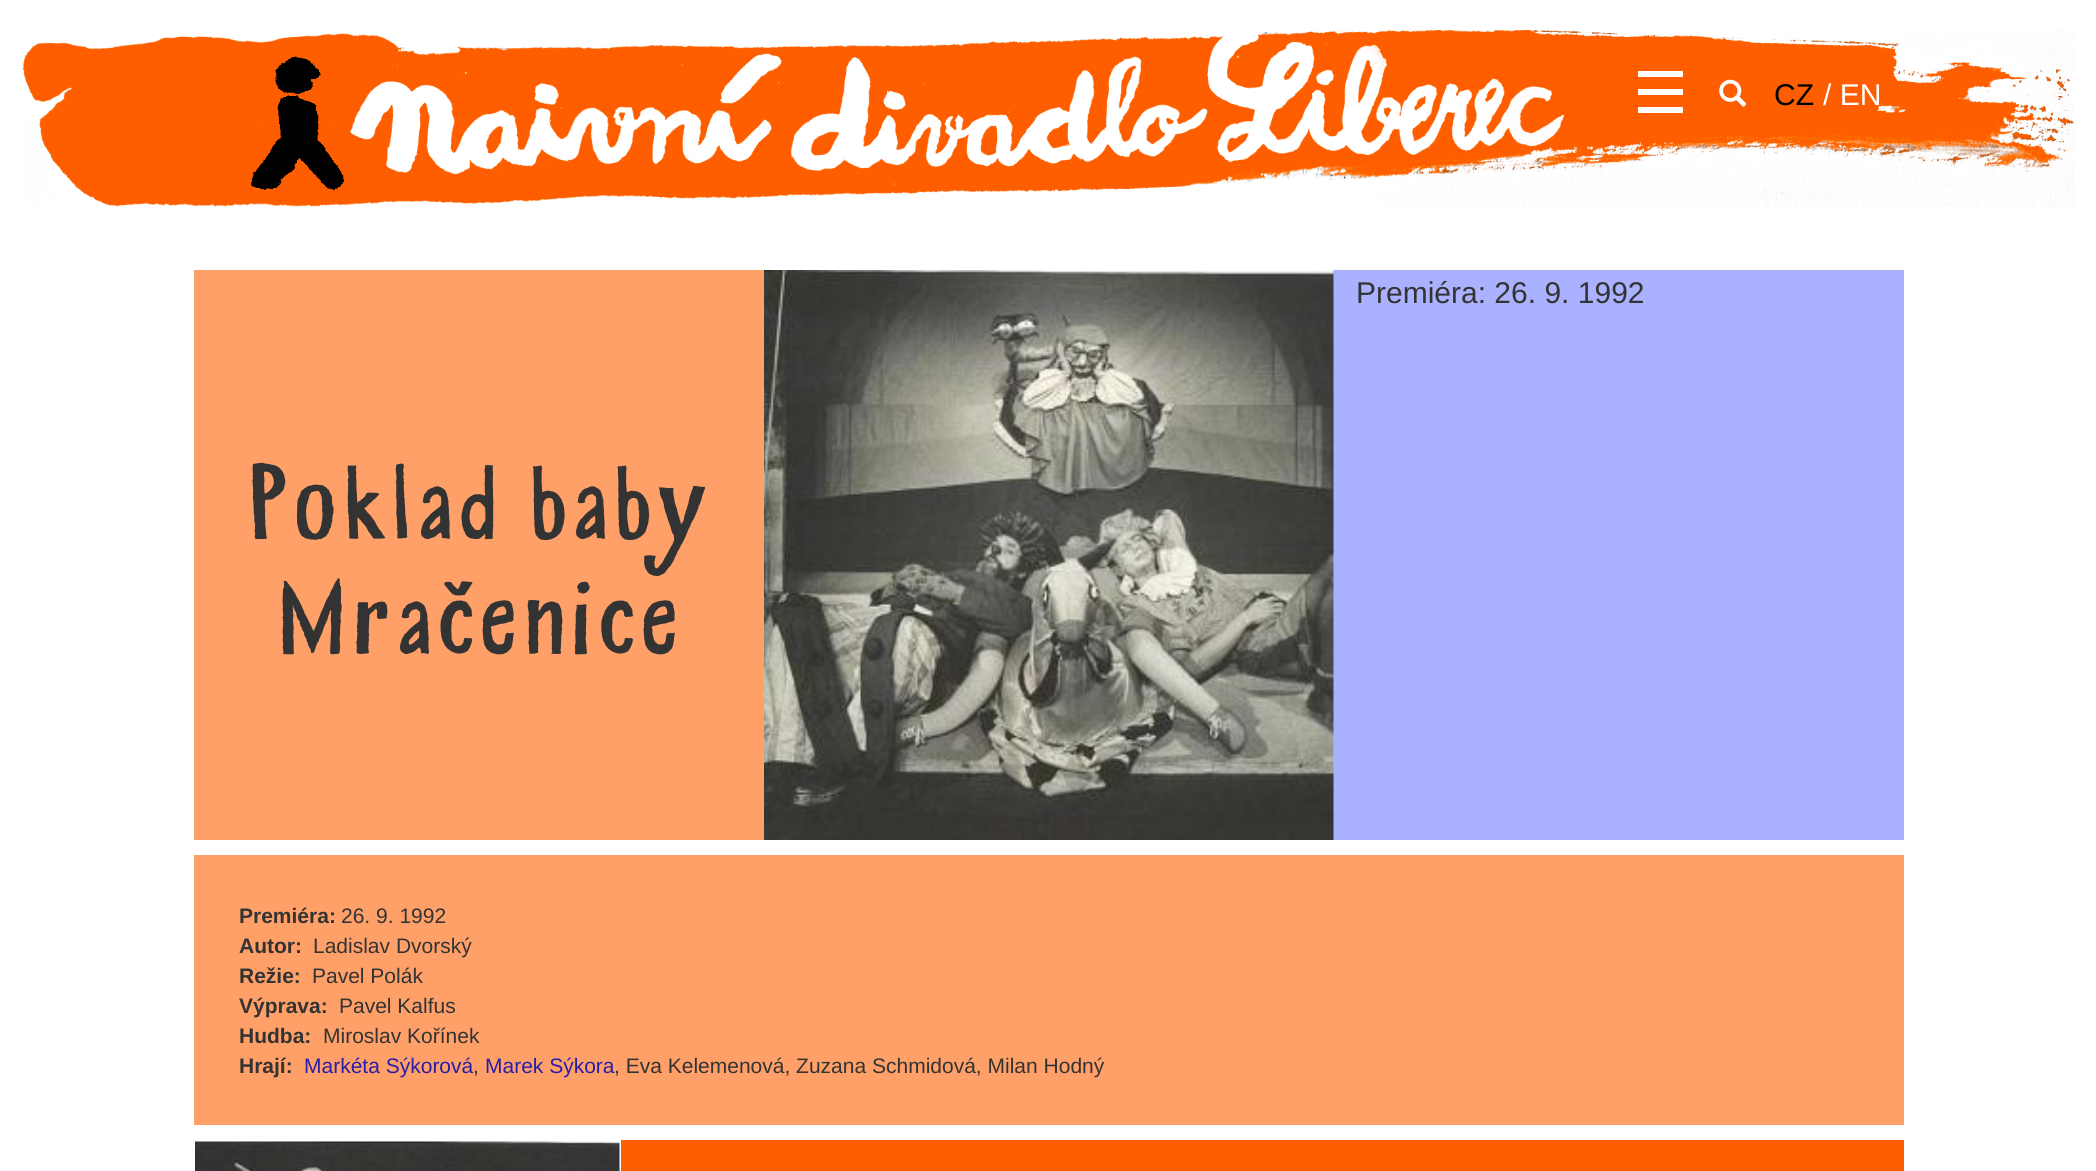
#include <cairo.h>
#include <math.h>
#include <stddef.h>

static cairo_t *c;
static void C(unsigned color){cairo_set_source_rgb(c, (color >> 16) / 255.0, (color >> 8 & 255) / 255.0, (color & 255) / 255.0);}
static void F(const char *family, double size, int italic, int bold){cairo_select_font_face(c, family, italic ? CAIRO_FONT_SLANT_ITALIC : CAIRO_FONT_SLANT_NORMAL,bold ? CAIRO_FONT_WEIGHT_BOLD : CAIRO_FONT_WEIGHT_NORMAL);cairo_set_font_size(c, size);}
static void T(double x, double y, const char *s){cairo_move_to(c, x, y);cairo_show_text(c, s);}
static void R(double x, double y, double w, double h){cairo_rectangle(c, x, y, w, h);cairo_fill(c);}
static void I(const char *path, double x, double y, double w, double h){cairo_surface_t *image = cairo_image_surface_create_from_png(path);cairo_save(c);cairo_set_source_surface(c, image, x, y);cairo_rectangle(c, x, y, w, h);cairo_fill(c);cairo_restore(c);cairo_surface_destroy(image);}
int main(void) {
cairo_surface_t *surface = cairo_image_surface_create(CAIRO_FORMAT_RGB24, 2096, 1171);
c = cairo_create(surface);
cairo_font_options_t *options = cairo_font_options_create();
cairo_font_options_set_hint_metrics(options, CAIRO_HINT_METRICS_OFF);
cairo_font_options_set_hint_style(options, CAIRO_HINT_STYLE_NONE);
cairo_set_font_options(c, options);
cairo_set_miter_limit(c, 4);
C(0xffffff);
cairo_paint(c);
I("1.png",22,30,2053,177);
C(0xffffff);
R(1638,71,45,6);
R(1638,89,45,6);
R(1638,107,45,6);
I("2.png",1719,79,28,28);
F("Liberation Sans",30,0,0);
C(0x000000);
T(1774,105,"CZ");
C(0xffffff);
T(1823,105,"/ EN");
C(0xaab2ff);
R(1333,270,571,570);
I("3.png",764,270,570,570);
C(0x333333);
T(1356,303,"Premiéra: 26. 9. 1992");
C(0xffa068);
R(194,270,570,570);
F("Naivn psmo",105,0,0);
C(0x333333);
T(245,539,"Poklad baby");
T(275,654,"Mračenice");
C(0xffa068);
R(194,855,1710,270);
F("Liberation Sans",21,0,1);
C(0x333333);
T(239,923,"Premiéra:");
F("Liberation Sans",21,0,0);
T(341,923,"26. 9. 1992");
F("Liberation Sans",21,0,1);
T(239,953,"Autor:");
F("Liberation Sans",21,0,0);
T(313,953,"Ladislav Dvorský");
F("Liberation Sans",21,0,1);
T(239,983,"Režie:");
F("Liberation Sans",21,0,0);
T(312,983,"Pavel Polák");
F("Liberation Sans",21,0,1);
T(239,1013,"Výprava:");
F("Liberation Sans",21,0,0);
T(339,1013,"Pavel Kalfus");
F("Liberation Sans",21,0,1);
T(239,1043,"Hudba:");
F("Liberation Sans",21,0,0);
T(323,1043,"Miroslav Kořínek");
F("Liberation Sans",21,0,1);
T(239,1073,"Hrají:");
F("Liberation Sans",21,0,0);
C(0x281ea9);
T(304,1073,"Markéta Sýkorová");
C(0x333333);
T(473,1073,",");
C(0x281ea9);
T(485,1073,"Marek Sýkora");
C(0x333333);
T(614,1073,", Eva Kelemenová, Zuzana Schmidová, Milan Hodný");
C(0xfe5e00);
R(621,1140,1283,31);
I("4.png",195,1141,425,30);
cairo_surface_write_to_png(surface, "o.png");
cairo_font_options_destroy(options);
cairo_destroy(c);
cairo_surface_destroy(surface);
return 0;
}
